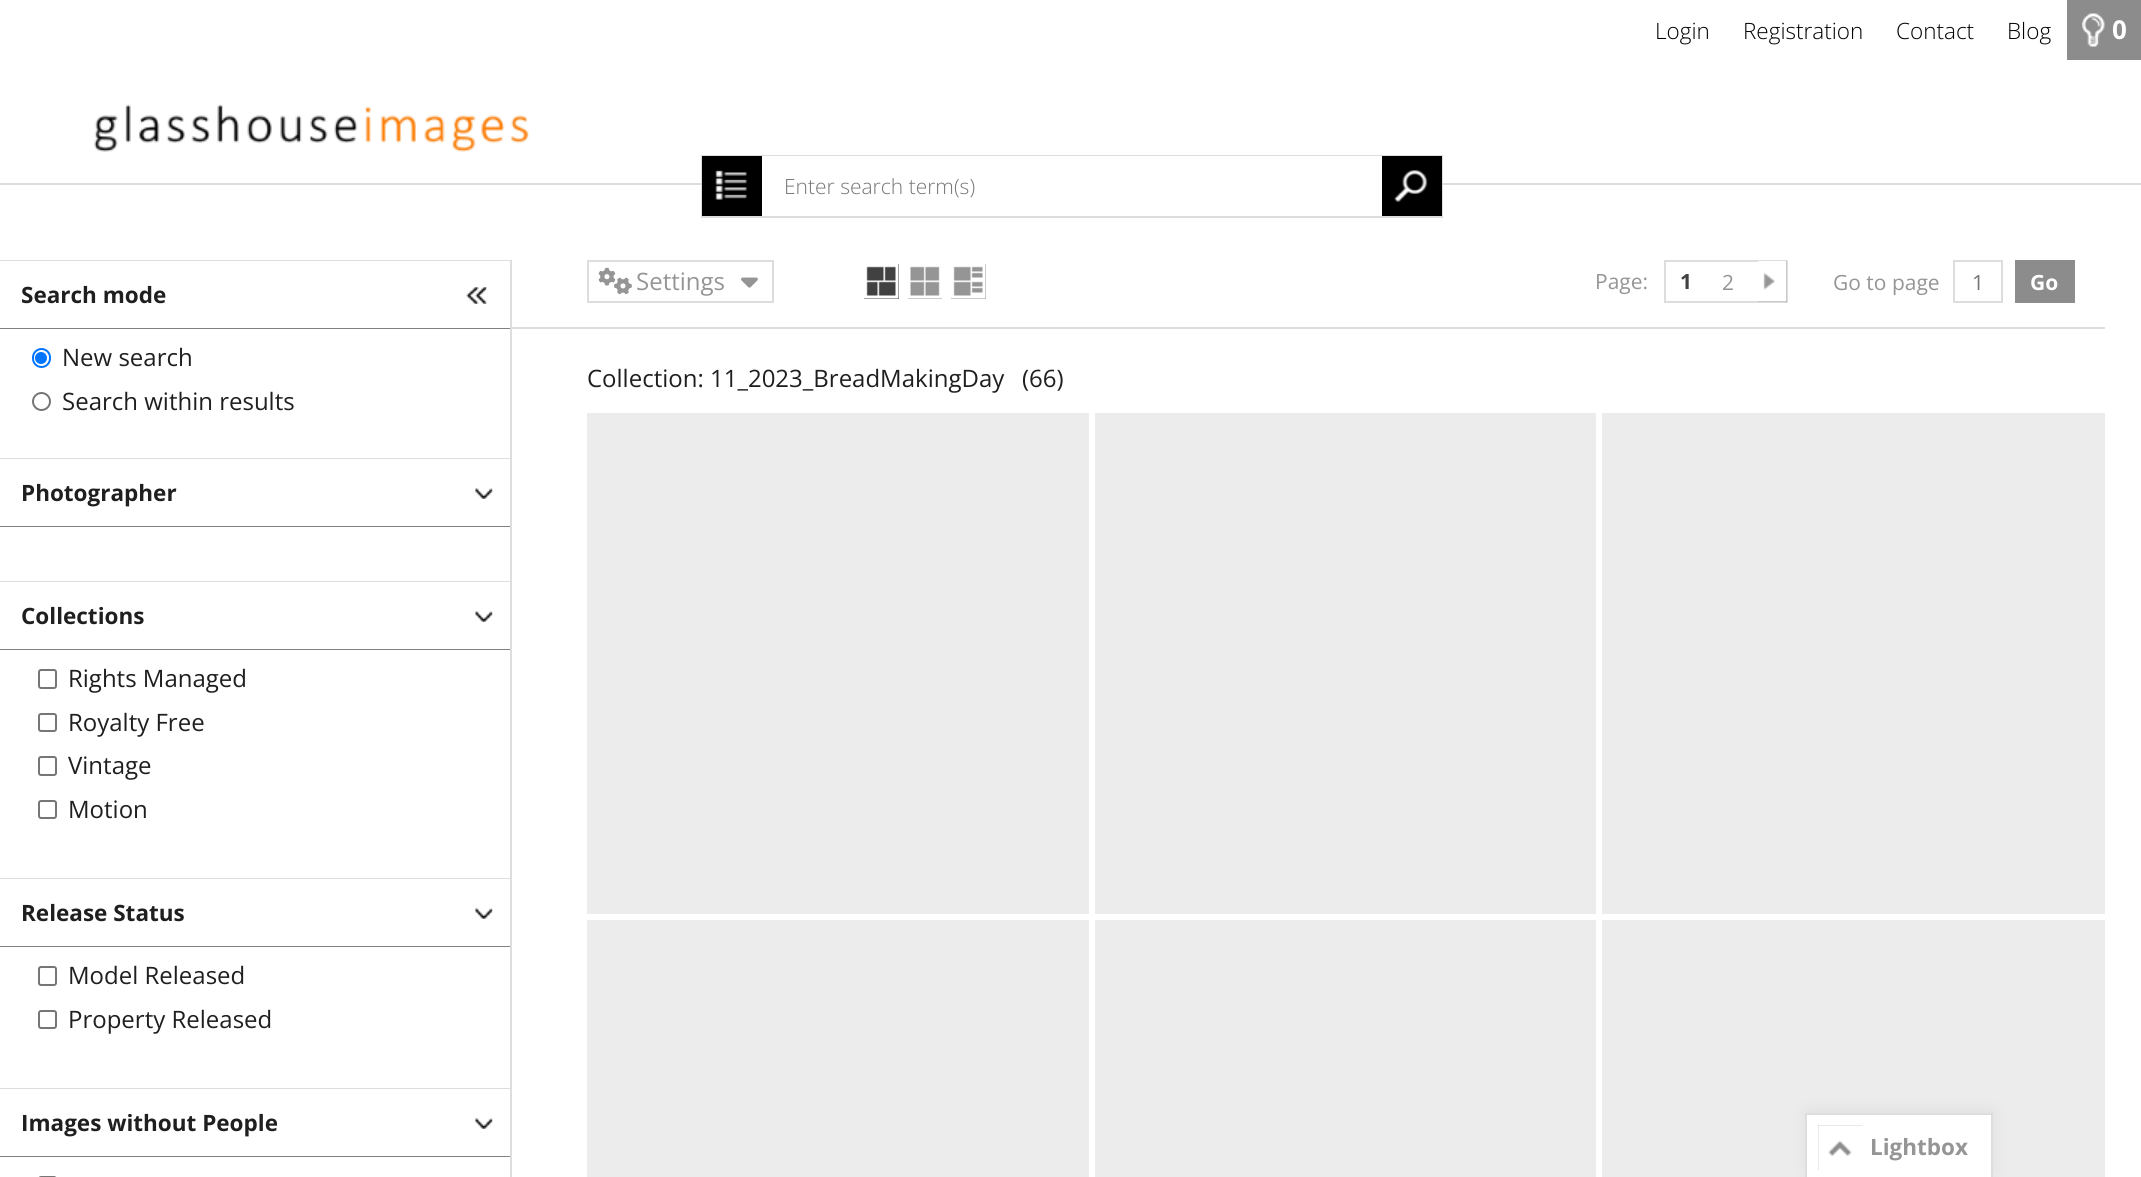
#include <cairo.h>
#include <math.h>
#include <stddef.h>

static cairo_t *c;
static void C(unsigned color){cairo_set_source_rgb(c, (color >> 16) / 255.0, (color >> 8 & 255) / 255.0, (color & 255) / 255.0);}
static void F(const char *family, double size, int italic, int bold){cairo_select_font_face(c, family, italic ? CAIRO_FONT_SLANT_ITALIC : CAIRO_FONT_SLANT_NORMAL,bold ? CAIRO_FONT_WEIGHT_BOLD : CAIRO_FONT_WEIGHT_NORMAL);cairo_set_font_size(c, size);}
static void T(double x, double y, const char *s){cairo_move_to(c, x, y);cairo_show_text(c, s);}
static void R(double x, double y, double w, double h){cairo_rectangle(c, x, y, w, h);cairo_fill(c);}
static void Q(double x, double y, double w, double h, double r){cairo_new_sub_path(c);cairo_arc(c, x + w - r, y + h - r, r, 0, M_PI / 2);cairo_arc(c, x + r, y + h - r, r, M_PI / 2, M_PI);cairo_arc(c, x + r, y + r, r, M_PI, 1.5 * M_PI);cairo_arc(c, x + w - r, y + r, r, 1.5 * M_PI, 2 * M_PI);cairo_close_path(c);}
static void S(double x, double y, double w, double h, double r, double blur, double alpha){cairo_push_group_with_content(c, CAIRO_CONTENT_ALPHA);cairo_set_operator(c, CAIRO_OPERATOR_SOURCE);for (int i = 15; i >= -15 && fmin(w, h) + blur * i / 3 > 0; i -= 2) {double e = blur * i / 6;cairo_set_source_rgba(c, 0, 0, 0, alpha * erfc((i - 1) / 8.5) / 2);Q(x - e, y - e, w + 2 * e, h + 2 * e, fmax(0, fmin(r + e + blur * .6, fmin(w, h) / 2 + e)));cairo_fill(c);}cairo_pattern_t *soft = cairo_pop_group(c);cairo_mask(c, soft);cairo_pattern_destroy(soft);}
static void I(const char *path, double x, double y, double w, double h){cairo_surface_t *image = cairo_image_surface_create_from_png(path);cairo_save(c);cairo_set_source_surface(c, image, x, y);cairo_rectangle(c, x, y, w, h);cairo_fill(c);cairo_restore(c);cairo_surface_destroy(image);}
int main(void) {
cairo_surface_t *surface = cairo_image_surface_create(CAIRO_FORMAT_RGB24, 2141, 1177);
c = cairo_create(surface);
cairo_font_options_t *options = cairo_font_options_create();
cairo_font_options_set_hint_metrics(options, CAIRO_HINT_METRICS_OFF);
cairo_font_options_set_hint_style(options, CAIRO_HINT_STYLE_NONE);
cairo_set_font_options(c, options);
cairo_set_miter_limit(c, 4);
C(0xffffff);
cairo_paint(c);
F("Open Sans Light",22.5,0,0);
C(0x000000);
T(1655,39,"Login");
T(1743,39,"Registration");
T(1896,39,"Contact");
T(2007,39,"Blog");
C(0x8c8c8c);
R(2067,0,74,60);
I("1.png",2082,13,23,34);
F("Open Sans",26,0,1);
C(0xffffff);
T(2112,39,"0");
C(0xdddddd);
R(0,183,2141,2);
I("2.png",94,104,435,48);
cairo_rectangle(c,702,156,740,61);
cairo_stroke(c);
C(0x000000);
R(702,156,60,60);
I("3.png",715,170,32,30);
C(0xffffff);
R(762,156,620,29);
F("Open Sans Light",21,0,0);
C(0x757575);
T(784,194,"Enter search term(s)");
C(0x000000);
R(1382,156,60,60);
I("4.png",1394,170,34,32);
C(0xdddddd);
R(510,260,2,917);
R(0,260,510,1);
C(0x000000);
R(0,328,450,1);
I("5.png",0,261,450,68);
F("Open Sans",22.5,0,1);
C(0x1f1f1f);
T(21,303,"Search mode");
C(0x000000);
R(450,287,60,42);
I("6.png",450,261,60,68);
Q(33,349,17,18,8.5);
C(0x0075ff);
cairo_stroke(c);
cairo_arc(c,41,358,6,0,2 * M_PI);
cairo_fill(c);
F("Open Sans",24,0,0);
C(0x1f1f1f);
T(62,366,"New search");
cairo_new_path(c);
cairo_arc(c,41.5,401.5,8.5,0,2 * M_PI);
C(0x767676);
cairo_stroke(c);
C(0x1f1f1f);
T(62,410,"Search within results");
C(0xdddddd);
R(0,458,510,1);
C(0x000000);
R(0,488,510,39);
I("7.png",0,459,510,68);
F("Open Sans",22.5,0,1);
C(0x1f1f1f);
T(21,501,"Photographer");
C(0xdddddd);
R(0,581,510,1);
C(0x000000);
R(0,611,510,39);
I("7.png",0,582,510,68);
C(0x1f1f1f);
T(21,624,"Collections");
Q(39,670,17,18,2);
C(0x767676);
cairo_stroke(c);
F("Open Sans",24,0,0);
C(0x1f1f1f);
T(68,687,"Rights Managed");
Q(39,714,17,17,2);
C(0x767676);
cairo_stroke(c);
C(0x1f1f1f);
T(68,731,"Royalty Free");
Q(39,757,17,18,2);
C(0x767676);
cairo_stroke(c);
C(0x1f1f1f);
T(68,774,"Vintage");
Q(39,801,17,17,2);
C(0x767676);
cairo_stroke(c);
C(0x1f1f1f);
T(68,818,"Motion");
C(0xdddddd);
R(0,878,510,1);
C(0x000000);
R(0,908,510,39);
I("7.png",0,879,510,68);
F("Open Sans",22.5,0,1);
C(0x1f1f1f);
T(21,921,"Release Status");
Q(39,967,17,18,2);
C(0x767676);
cairo_stroke(c);
F("Open Sans",24,0,0);
C(0x1f1f1f);
T(68,984,"Model Released");
Q(39,1011,17,17,2);
C(0x767676);
cairo_stroke(c);
C(0x1f1f1f);
T(68,1028,"Property Released");
C(0xdddddd);
R(0,1088,510,1);
C(0x000000);
R(0,1118,510,39);
I("7.png",0,1089,510,68);
F("Open Sans",22.5,0,1);
C(0x1f1f1f);
T(21,1131,"Images without People");
Q(39,1177,17,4,2);
C(0x767676);
cairo_stroke(c);
C(0xdddddd);
R(512,327,1593,2);
cairo_rectangle(c,588,261,185,41);
cairo_stroke(c);
I("8.png",598,267,34,28);
F("Open Sans",24,0,0);
C(0x959595);
T(636,290,"Settings");
I("9.png",741,277,17,11);
C(0x414141);
R(864,264,35,35);
I("10.png",864,264,35,35);
C(0x959595);
R(908,266,34,33);
I("11.png",908,264,34,35);
R(951,264,35,35);
I("12.png",951,264,35,35);
F("Open Sans",21,0,0);
T(1595,289,"Page:");
cairo_rectangle(c,1665,261,122,41);
C(0xdddddd);
cairo_stroke(c);
F("Open Sans",21,0,1);
C(0x414141);
T(1680,289,"1");
F("Open Sans",21,0,0);
C(0x959595);
T(1722,290,"2");
R(1758,261,29,41);
I("13.png",1758,261,29,41);
T(1833,290,"Go to page");
cairo_rectangle(c,1954,261,48,41);
C(0xdddddd);
cairo_stroke(c);
C(0x757575);
T(1972,290,"1");
C(0x8c8c8c);
R(2015,260,60,43);
F("Open Sans",21,0,1);
C(0xffffff);
T(2030,290,"Go");
F("Open Sans",24,0,0);
C(0x1f1f1f);
T(587,387,"Collection: 11_2023_BreadMakingDay");
T(1022,387,"(66)");
C(0xececec);
R(587,413,502,501);
R(1095,413,501,501);
R(1602,413,503,501);
R(587,920,502,257);
R(1095,920,501,257);
R(1602,920,503,257);
C(0x000000);
S(1806,1109,188,64,0,7.5,.05);
C(0xffffff);
R(1807,1115,184,62);
C(0xdddddd);
R(1805,1113,187,2);
R(1991,1113,2,64);
R(1805,1113,2,64);
C(0x8c8c8c);
R(1818,1125,45,45);
I("14.png",1818,1125,45,45);
F("Open Sans",22.5,0,1);
C(0x959595);
T(1870,1155,"Lightbox");
cairo_surface_write_to_png(surface, "o.png");
cairo_font_options_destroy(options);
cairo_destroy(c);
cairo_surface_destroy(surface);
return 0;
}
